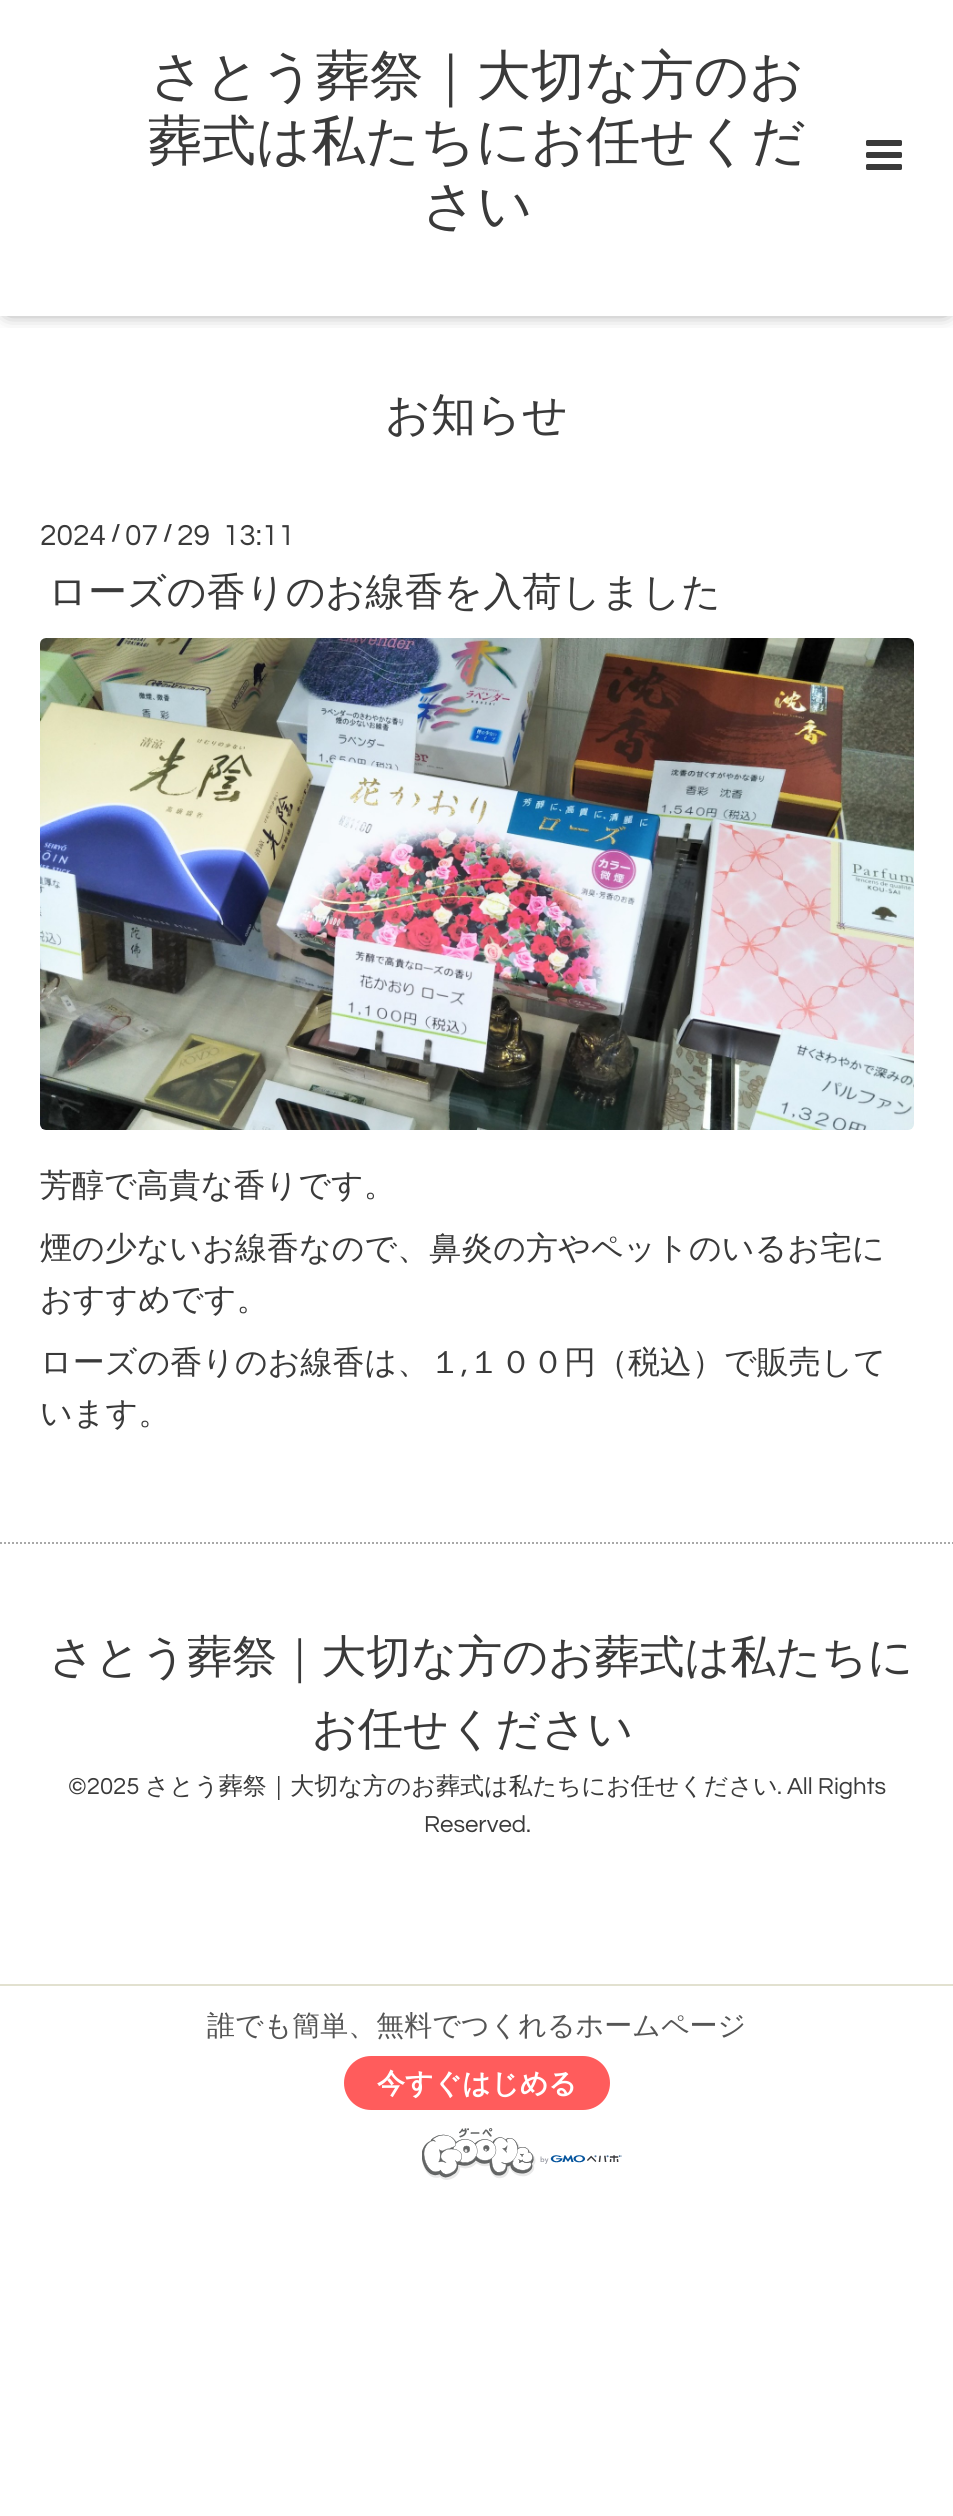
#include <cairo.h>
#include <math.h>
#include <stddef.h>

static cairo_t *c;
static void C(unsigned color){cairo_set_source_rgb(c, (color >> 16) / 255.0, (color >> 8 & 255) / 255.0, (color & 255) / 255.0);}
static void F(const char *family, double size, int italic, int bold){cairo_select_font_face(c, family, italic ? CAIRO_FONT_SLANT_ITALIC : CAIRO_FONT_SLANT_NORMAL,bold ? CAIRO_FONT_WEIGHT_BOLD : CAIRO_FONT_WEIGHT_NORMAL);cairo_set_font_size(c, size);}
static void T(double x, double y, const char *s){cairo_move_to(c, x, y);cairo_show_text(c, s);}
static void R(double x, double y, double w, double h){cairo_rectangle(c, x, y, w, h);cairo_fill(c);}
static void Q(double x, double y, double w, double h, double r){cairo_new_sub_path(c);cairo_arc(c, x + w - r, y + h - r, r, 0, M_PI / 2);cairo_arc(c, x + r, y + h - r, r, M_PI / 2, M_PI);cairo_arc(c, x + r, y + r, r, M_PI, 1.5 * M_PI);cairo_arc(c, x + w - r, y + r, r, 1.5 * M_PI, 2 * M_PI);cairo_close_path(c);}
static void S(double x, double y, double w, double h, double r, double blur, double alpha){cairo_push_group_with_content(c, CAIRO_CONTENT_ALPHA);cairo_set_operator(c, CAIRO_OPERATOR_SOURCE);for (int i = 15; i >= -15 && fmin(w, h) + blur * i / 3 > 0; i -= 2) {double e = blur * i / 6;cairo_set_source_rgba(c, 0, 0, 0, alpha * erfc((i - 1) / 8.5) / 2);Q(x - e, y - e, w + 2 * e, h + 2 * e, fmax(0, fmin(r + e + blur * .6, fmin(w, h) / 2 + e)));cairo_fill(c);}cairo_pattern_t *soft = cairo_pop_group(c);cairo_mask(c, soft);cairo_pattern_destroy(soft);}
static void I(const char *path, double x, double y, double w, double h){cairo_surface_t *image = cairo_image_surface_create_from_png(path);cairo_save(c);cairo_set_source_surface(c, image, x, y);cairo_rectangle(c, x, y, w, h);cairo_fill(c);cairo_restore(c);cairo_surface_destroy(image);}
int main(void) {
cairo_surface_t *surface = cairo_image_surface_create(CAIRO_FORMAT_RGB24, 953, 2516);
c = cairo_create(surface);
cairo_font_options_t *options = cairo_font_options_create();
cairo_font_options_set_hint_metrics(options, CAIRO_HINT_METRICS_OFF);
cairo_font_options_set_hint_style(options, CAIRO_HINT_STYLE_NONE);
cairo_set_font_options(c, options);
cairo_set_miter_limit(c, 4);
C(0xffffff);
cairo_paint(c);
cairo_save(c);
cairo_rectangle(c,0,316,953,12);
cairo_clip(c);
C(0x000000);
S(8,10,938,300,0,10,.6);
cairo_restore(c);
F("WenQuanYi Zen Hei Medium",54,0,0);
C(0x3a3a3a);
T(150,94,"さとう葬祭｜大切な方のお");
T(148,159,"葬式は私たちにお任せくだ");
T(422,224,"さい");
I("1.png",866,140,36,30);
F("WenQuanYi Zen Hei Medium",45,0,0);
T(385,430,"お知らせ");
F("Questrial",30,0,0);
T(40,545,"2024");
F("Questrial",24,0,1);
T(111,541,"/");
F("Questrial",30,0,0);
T(125,545,"07");
F("Questrial",24,0,1);
T(163,541,"/");
F("Questrial",30,0,0);
T(177,545,"29  13:11");
F("WenQuanYi Zen Hei Medium",39,0,0);
T(48,605,"ローズの香りのお線香を入荷しました");
I("2.png",40,638,874,492);
F("WenQuanYi Zen Hei Medium",32,0,0);
T(40,1196,"芳醇で高貴な香りです。");
T(40,1259,"煙の少ないお線香なので、鼻炎の方やペットのいるお宅に");
T(40,1310,"おすすめです。");
T(40,1373,"ローズの香りのお線香は、１");
F("Questrial",32,0,0);
T(461,1373,",");
F("WenQuanYi Zen Hei Medium",32,0,0);
T(468,1373,"１００円（税込）で販売して");
T(40,1424,"います。");
cairo_new_path(c);
cairo_move_to(c,0,1543);
cairo_line_to(c,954,1543);
C(0xa9a9a9);
cairo_set_dash(c,(double[]){2,2},2,0);
cairo_stroke(c);
F("WenQuanYi Zen Hei Medium",45,0,0);
C(0x3a3a3a);
T(49,1672,"さとう葬祭｜大切な方のお葬式は私たちに");
T(312,1744,"お任せください");
F("Questrial",24,0,0);
T(68,1794,"©2025");
F("WenQuanYi Zen Hei Medium",24,0,0);
T(145,1794,"さとう葬祭｜大切な方のお葬式は私たちにお任せください");
F("Questrial",24,0,0);
T(777,1794,". All Rights");
T(424,1832,"Reserved.");
C(0xe2e1d0);
R(0,1984,953,2);
F("WenQuanYi Zen Hei Medium",28,0,0);
C(0x555555);
T(207,2035,"誰でも簡単、無料でつくれるホームページ");
C(0xff5c5c);
Q(344,2056,266,54,27);
cairo_fill(c);
F("WenQuanYi Zen Hei",28,0,1);
C(0xffffff);
T(377,2093,"今すぐはじめる");
I("3.png",422,2128,200,52);
cairo_surface_write_to_png(surface, "o.png");
cairo_font_options_destroy(options);
cairo_destroy(c);
cairo_surface_destroy(surface);
return 0;
}
